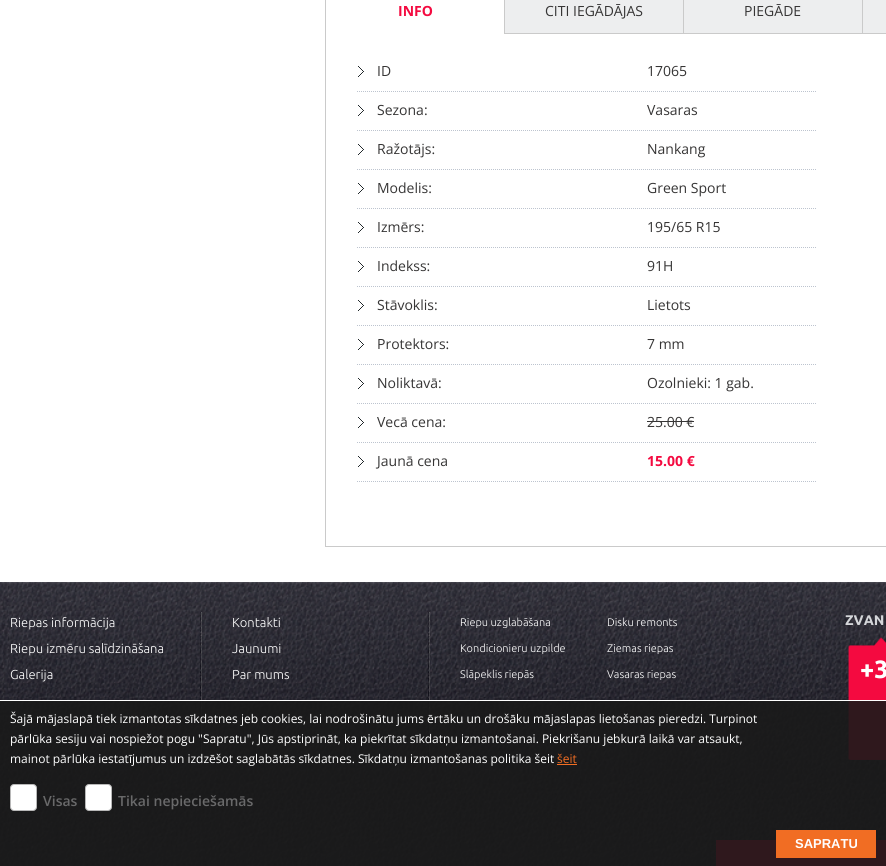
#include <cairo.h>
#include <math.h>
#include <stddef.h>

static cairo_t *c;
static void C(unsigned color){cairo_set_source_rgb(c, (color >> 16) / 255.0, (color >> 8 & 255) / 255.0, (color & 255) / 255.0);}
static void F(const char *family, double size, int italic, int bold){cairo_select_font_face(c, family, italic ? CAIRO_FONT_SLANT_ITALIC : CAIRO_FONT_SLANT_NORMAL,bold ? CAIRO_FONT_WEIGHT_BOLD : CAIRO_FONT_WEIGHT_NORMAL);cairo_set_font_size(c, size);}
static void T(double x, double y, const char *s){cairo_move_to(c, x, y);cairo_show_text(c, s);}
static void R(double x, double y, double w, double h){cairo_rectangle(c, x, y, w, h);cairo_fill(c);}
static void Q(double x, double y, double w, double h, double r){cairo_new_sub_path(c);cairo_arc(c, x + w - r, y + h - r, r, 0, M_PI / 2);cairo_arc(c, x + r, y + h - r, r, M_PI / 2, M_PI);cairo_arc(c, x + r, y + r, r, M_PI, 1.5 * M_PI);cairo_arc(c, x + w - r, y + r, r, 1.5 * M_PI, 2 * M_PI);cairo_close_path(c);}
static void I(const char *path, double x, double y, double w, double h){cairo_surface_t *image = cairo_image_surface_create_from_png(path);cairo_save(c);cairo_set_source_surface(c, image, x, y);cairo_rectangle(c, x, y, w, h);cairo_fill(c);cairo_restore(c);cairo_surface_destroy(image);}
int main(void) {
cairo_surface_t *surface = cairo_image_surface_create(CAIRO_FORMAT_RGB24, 886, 866);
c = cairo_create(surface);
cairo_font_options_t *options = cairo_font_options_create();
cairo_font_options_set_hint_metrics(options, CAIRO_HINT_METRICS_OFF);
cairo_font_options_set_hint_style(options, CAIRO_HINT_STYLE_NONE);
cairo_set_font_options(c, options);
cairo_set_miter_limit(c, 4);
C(0xffffff);
cairo_paint(c);
cairo_rectangle(c,325.5,33.5,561,513);
C(0xcacaca);
cairo_set_line_width(c,1);
cairo_stroke(c);
C(0xffffff);
R(326,33,178,1);
C(0xcacaca);
R(325,0,1,34);
F("Open Sans",14,0,1);
C(0xf40a40);
T(398,16,"INFO");
C(0xedeeef);
R(505,0,178,33);
C(0xcacaca);
R(504,0,1,34);
F("Open Sans",14,0,0);
C(0x363535);
T(545,16,"CITI IEGĀDĀJAS");
C(0xedeeef);
R(684,0,178,33);
C(0xcacaca);
R(683,0,1,34);
C(0x363535);
T(744,16,"PIEGĀDE");
C(0xedeeef);
cairo_rectangle(c,862.5,-.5,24,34);
cairo_fill_preserve(c);
C(0xcacaca);
cairo_stroke(c);
I("1.png",358,66,6,11);
cairo_new_path(c);
cairo_move_to(c,357,91.5);
cairo_line_to(c,817,91.5);
C(0xbdc4cf);
cairo_set_dash(c,(double[]){1,1},2,0);
cairo_stroke(c);
C(0x363535);
T(377,76,"ID");
T(647,76,"17065");
I("1.png",358,105,6,11);
cairo_new_path(c);
cairo_move_to(c,357,130.5);
cairo_line_to(c,817,130.5);
C(0xbdc4cf);
cairo_stroke(c);
C(0x363535);
T(377,115,"Sezona:");
T(647,115,"Vasaras");
I("1.png",358,144,6,11);
cairo_new_path(c);
cairo_move_to(c,357,169.5);
cairo_line_to(c,817,169.5);
C(0xbdc4cf);
cairo_stroke(c);
C(0x363535);
T(377,154,"Ražotājs:");
T(647,154,"Nankang");
I("1.png",358,183,6,11);
cairo_new_path(c);
cairo_move_to(c,357,208.5);
cairo_line_to(c,817,208.5);
C(0xbdc4cf);
cairo_stroke(c);
C(0x363535);
T(377,193,"Modelis:");
T(647,193,"Green Sport");
I("1.png",358,222,6,11);
cairo_new_path(c);
cairo_move_to(c,357,247.5);
cairo_line_to(c,817,247.5);
C(0xbdc4cf);
cairo_stroke(c);
C(0x363535);
T(377,232,"Izmērs:");
T(647,232,"195/65 R15");
I("1.png",358,261,6,11);
cairo_new_path(c);
cairo_move_to(c,357,286.5);
cairo_line_to(c,817,286.5);
C(0xbdc4cf);
cairo_stroke(c);
C(0x363535);
T(377,271,"Indekss:");
T(647,271,"91H");
I("1.png",358,300,6,11);
cairo_new_path(c);
cairo_move_to(c,357,325.5);
cairo_line_to(c,817,325.5);
C(0xbdc4cf);
cairo_stroke(c);
C(0x363535);
T(377,310,"Stāvoklis:");
T(647,310,"Lietots");
I("1.png",358,339,6,11);
cairo_new_path(c);
cairo_move_to(c,357,364.5);
cairo_line_to(c,817,364.5);
C(0xbdc4cf);
cairo_stroke(c);
C(0x363535);
T(377,349,"Protektors:");
T(647,349,"7 mm");
I("1.png",358,378,6,11);
cairo_new_path(c);
cairo_move_to(c,357,403.5);
cairo_line_to(c,817,403.5);
C(0xbdc4cf);
cairo_stroke(c);
C(0x363535);
T(377,388,"Noliktavā:");
T(647,388,"Ozolnieki: 1 gab.");
I("1.png",358,417,6,11);
cairo_new_path(c);
cairo_move_to(c,357,442.5);
cairo_line_to(c,817,442.5);
C(0xbdc4cf);
cairo_stroke(c);
C(0x363535);
T(377,427,"Vecā cena:");
T(647,427,"25.00 €");
R(647,421,47,1);
I("1.png",358,456,6,11);
cairo_new_path(c);
cairo_move_to(c,357,481.5);
cairo_line_to(c,817,481.5);
C(0xbdc4cf);
cairo_stroke(c);
C(0x363535);
T(377,466,"Jaunā cena");
F("Open Sans",14,0,1);
C(0xf40a40);
T(647,466,"15.00 €");
I("2.png",0,582,886,284);
I("3.png",200,612,2,154);
F("Ubuntu Light",13,0,0);
C(0xffffff);
T(10,627,"Riepas informācija");
T(10,653,"Riepu izmēru salīdzināšana");
T(10,679,"Galerija");
I("3.png",428,612,2,154);
T(232,627,"Kontakti");
T(232,653,"Jaunumi");
T(232,679,"Par mums");
F("Ubuntu Light",11,0,0);
T(460,626,"Riepu uzglabāšana");
T(607,626,"Disku remonts");
T(460,652,"Kondicionieru uzpilde");
T(607,652,"Ziemas riepas");
T(460,678,"Slāpeklis riepās");
T(607,678,"Vasaras riepas");
I("4.png",848,637,38,123);
F("Ubuntu",14,0,1);
C(0xd4d6d9);
T(845,625,"ZVAN");
F("Ubuntu",25,0,1);
C(0xffffff);
T(860,678,"+3");
C(0xf40a40);
R(716,840,170,26);
cairo_set_source_rgba(c,0.102,0.102,0.102,0.9);
R(0,701,886,165);
C(0xffffff);
R(0,700,886,1);
F("Open Sans",12,0,0);
T(10,723,"Šajā mājaslapā tiek izmantotas sīkdatnes jeb cookies, lai nodrošinātu jums ērtāku un drošāku mājaslapas lietošanas pieredzi. Turpinot");
T(10,743,"pārlūka sesiju vai nospiežot pogu \"Sapratu\", Jūs apstiprināt, ka piekrītat sīkdatņu izmantošanai. Piekrišanu jebkurā laikā var atsaukt,");
T(10,763,"mainot pārlūka iestatījumus un izdzēšot saglabātās sīkdatnes. Sīkdatņu izmantošanas politika šeit");
C(0xf16d23);
T(557,763,"šeit");
R(557,764,20,1);
C(0xffffff);
Q(10.5,784.5,26,26,3.5);
cairo_fill_preserve(c);
C(0xb8b8b8);
cairo_set_dash(c,NULL,0,0);
cairo_stroke(c);
F("Open Sans SemiBold",14,0,0);
C(0x69696a);
T(43,806,"Visas");
C(0xffffff);
Q(85.5,784.5,26,26,3.5);
cairo_fill_preserve(c);
C(0xb8b8b8);
cairo_stroke(c);
C(0x69696a);
T(118,806,"Tikai nepieciešamās");
C(0xf16d23);
R(776,830,100,28);
F("Liberation Sans",13,0,1);
C(0xffffff);
T(795,848,"SAPRATU");
cairo_surface_write_to_png(surface, "o.png");
cairo_font_options_destroy(options);
cairo_destroy(c);
cairo_surface_destroy(surface);
return 0;
}
